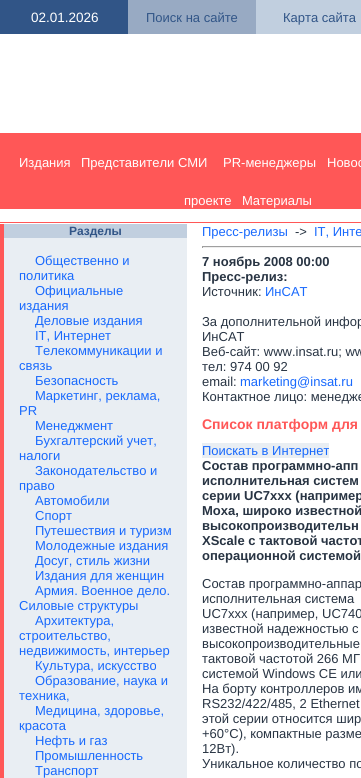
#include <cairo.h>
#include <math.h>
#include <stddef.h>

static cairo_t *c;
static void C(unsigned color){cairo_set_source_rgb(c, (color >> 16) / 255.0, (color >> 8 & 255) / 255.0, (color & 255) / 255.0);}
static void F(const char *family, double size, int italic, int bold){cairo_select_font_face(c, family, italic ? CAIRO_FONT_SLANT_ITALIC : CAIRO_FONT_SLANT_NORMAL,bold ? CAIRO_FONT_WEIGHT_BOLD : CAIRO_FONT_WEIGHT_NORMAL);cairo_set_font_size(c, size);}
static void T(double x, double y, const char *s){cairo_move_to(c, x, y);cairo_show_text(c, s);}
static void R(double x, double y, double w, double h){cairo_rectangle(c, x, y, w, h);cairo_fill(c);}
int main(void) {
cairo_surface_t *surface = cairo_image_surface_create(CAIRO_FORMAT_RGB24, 361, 778);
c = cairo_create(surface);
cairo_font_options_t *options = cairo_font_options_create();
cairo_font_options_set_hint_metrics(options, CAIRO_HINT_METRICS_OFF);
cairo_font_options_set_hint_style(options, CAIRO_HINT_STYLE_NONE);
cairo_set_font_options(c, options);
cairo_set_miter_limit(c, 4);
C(0xffffff);
cairo_paint(c);
C(0x315587);
R(0,0,128,34);
F("Liberation Sans",13.5,0,0);
C(0xffffff);
T(31,22,"02.01.2026");
C(0x98aac3);
R(128,0,128,34);
F("Liberation Sans",13,0,0);
C(0x315587);
T(146,22,"Поиск на сайте");
C(0xc1cfdf);
R(256,0,105,34);
C(0x315587);
T(283,22,"Карта сайта");
C(0xff5757);
R(0,133,361,76);
C(0xffffff);
T(19,167,"Издания");
T(81,167,"Представители СМИ");
T(223,167,"PR-менеджеры");
T(327,167,"Новос");
T(184,205,"проекте");
T(242,205,"Материалы");
C(0xff5757);
R(0,222,361,1);
R(0,224,4,554);
C(0xe9eef3);
R(4,238,183,540);
C(0xc1cfdf);
R(4,224,183,14);
F("Liberation Sans",12,0,1);
C(0x315587);
T(69,235,"Разделы");
F("Liberation Sans",13,0,0);
C(0x1869fd);
T(35,265,"Общественно и");
T(19,280,"политика");
T(35,295,"Официальные");
T(19,310,"издания");
T(35,325,"Деловые издания");
T(35,340,"IT, Интернет");
T(35,355,"Телекоммуникации и");
T(19,370,"связь");
T(35,385,"Безопасность");
T(35,400,"Маркетинг, реклама,");
T(19,415,"PR");
T(35,430,"Менеджмент");
T(35,445,"Бухгалтерский учет,");
T(19,460,"налоги");
T(35,475,"Законодательство и");
T(19,490,"право");
T(35,505,"Автомобили");
T(35,520,"Спорт");
T(35,535,"Путешествия и туризм");
T(35,550,"Молодежные издания");
T(35,565,"Досуг, стиль жизни");
T(35,580,"Издания для женщин");
T(35,595,"Армия. Военное дело.");
T(19,610,"Силовые структуры");
T(35,625,"Архитектура,");
T(19,640,"строительство,");
T(19,655,"недвижимость, интерьер");
T(35,670,"Культура, искусство");
T(35,685,"Образование, наука и");
T(19,700,"техника,");
T(35,715,"Медицина, здоровье,");
T(19,730,"красота");
T(35,745,"Нефть и газ");
T(35,760,"Промышленность");
T(35,775,"Транспорт");
T(202,236,"Пресс-релизы");
C(0x283443);
T(295,236,"->");
C(0x1869fd);
T(314,236,"IT, Инте");
C(0x9f9f9f);
R(202,246,159,1);
C(0xeeeeee);
R(202,247,159,1);
C(0x9f9f9f);
R(202,246,1,2);
F("Liberation Sans",13,0,1);
C(0x283443);
T(202,266,"7 ноябрь 2008 00:00");
T(202,281,"Пресс-релиз:");
F("Liberation Sans",13,0,0);
T(202,296,"Источник:");
C(0x1869fd);
T(265,296,"ИнСАТ");
C(0x283443);
T(202,326,"За дополнительной инфор");
T(202,341,"ИнСАТ");
T(202,356,"Веб-сайт: www.insat.ru; ww");
T(202,371,"тел: 974 00 92");
T(202,386,"email:");
C(0x1869fd);
T(240,386,"marketing@insat.ru");
C(0x283443);
T(202,401,"Контактное лицо: менедже");
F("Liberation Sans",14,0,1);
C(0xff5757);
T(202,429,"Список платформ для");
C(0xe9eef3);
R(202,443,127,15);
F("Liberation Sans",13,0,0);
C(0x1869fd);
T(202,455,"Поискать в Интернет");
F("Liberation Sans",13,0,1);
C(0x283443);
T(202,470,"Состав программно-апп");
T(202,485,"исполнительная систем");
T(202,500,"серии UC7xxx (например");
T(202,515,"Moxa, широко известной");
T(202,530,"высокопроизводительн");
T(202,545,"XScale с тактовой частот");
T(202,560,"операционной системой");
F("Liberation Sans",13,0,0);
T(202,588,"Состав программно-аппар");
T(202,603,"исполнительная система");
T(202,618,"UC7xxx (например, UC740");
T(202,633,"известной надежностью с");
T(202,648,"высокопроизводительные");
T(202,663,"тактовой частотой 266 МГ");
T(202,678,"системой Windows CE или");
T(202,693,"На борту контроллеров им");
T(202,708,"RS232/422/485, 2 Ethernet");
T(202,723,"этой серии относится шир");
T(202,738,"+60°С), компактные разме");
T(202,753,"12Вт).");
T(202,768,"Уникальное количество по");
cairo_surface_write_to_png(surface, "o.png");
cairo_font_options_destroy(options);
cairo_destroy(c);
cairo_surface_destroy(surface);
return 0;
}
